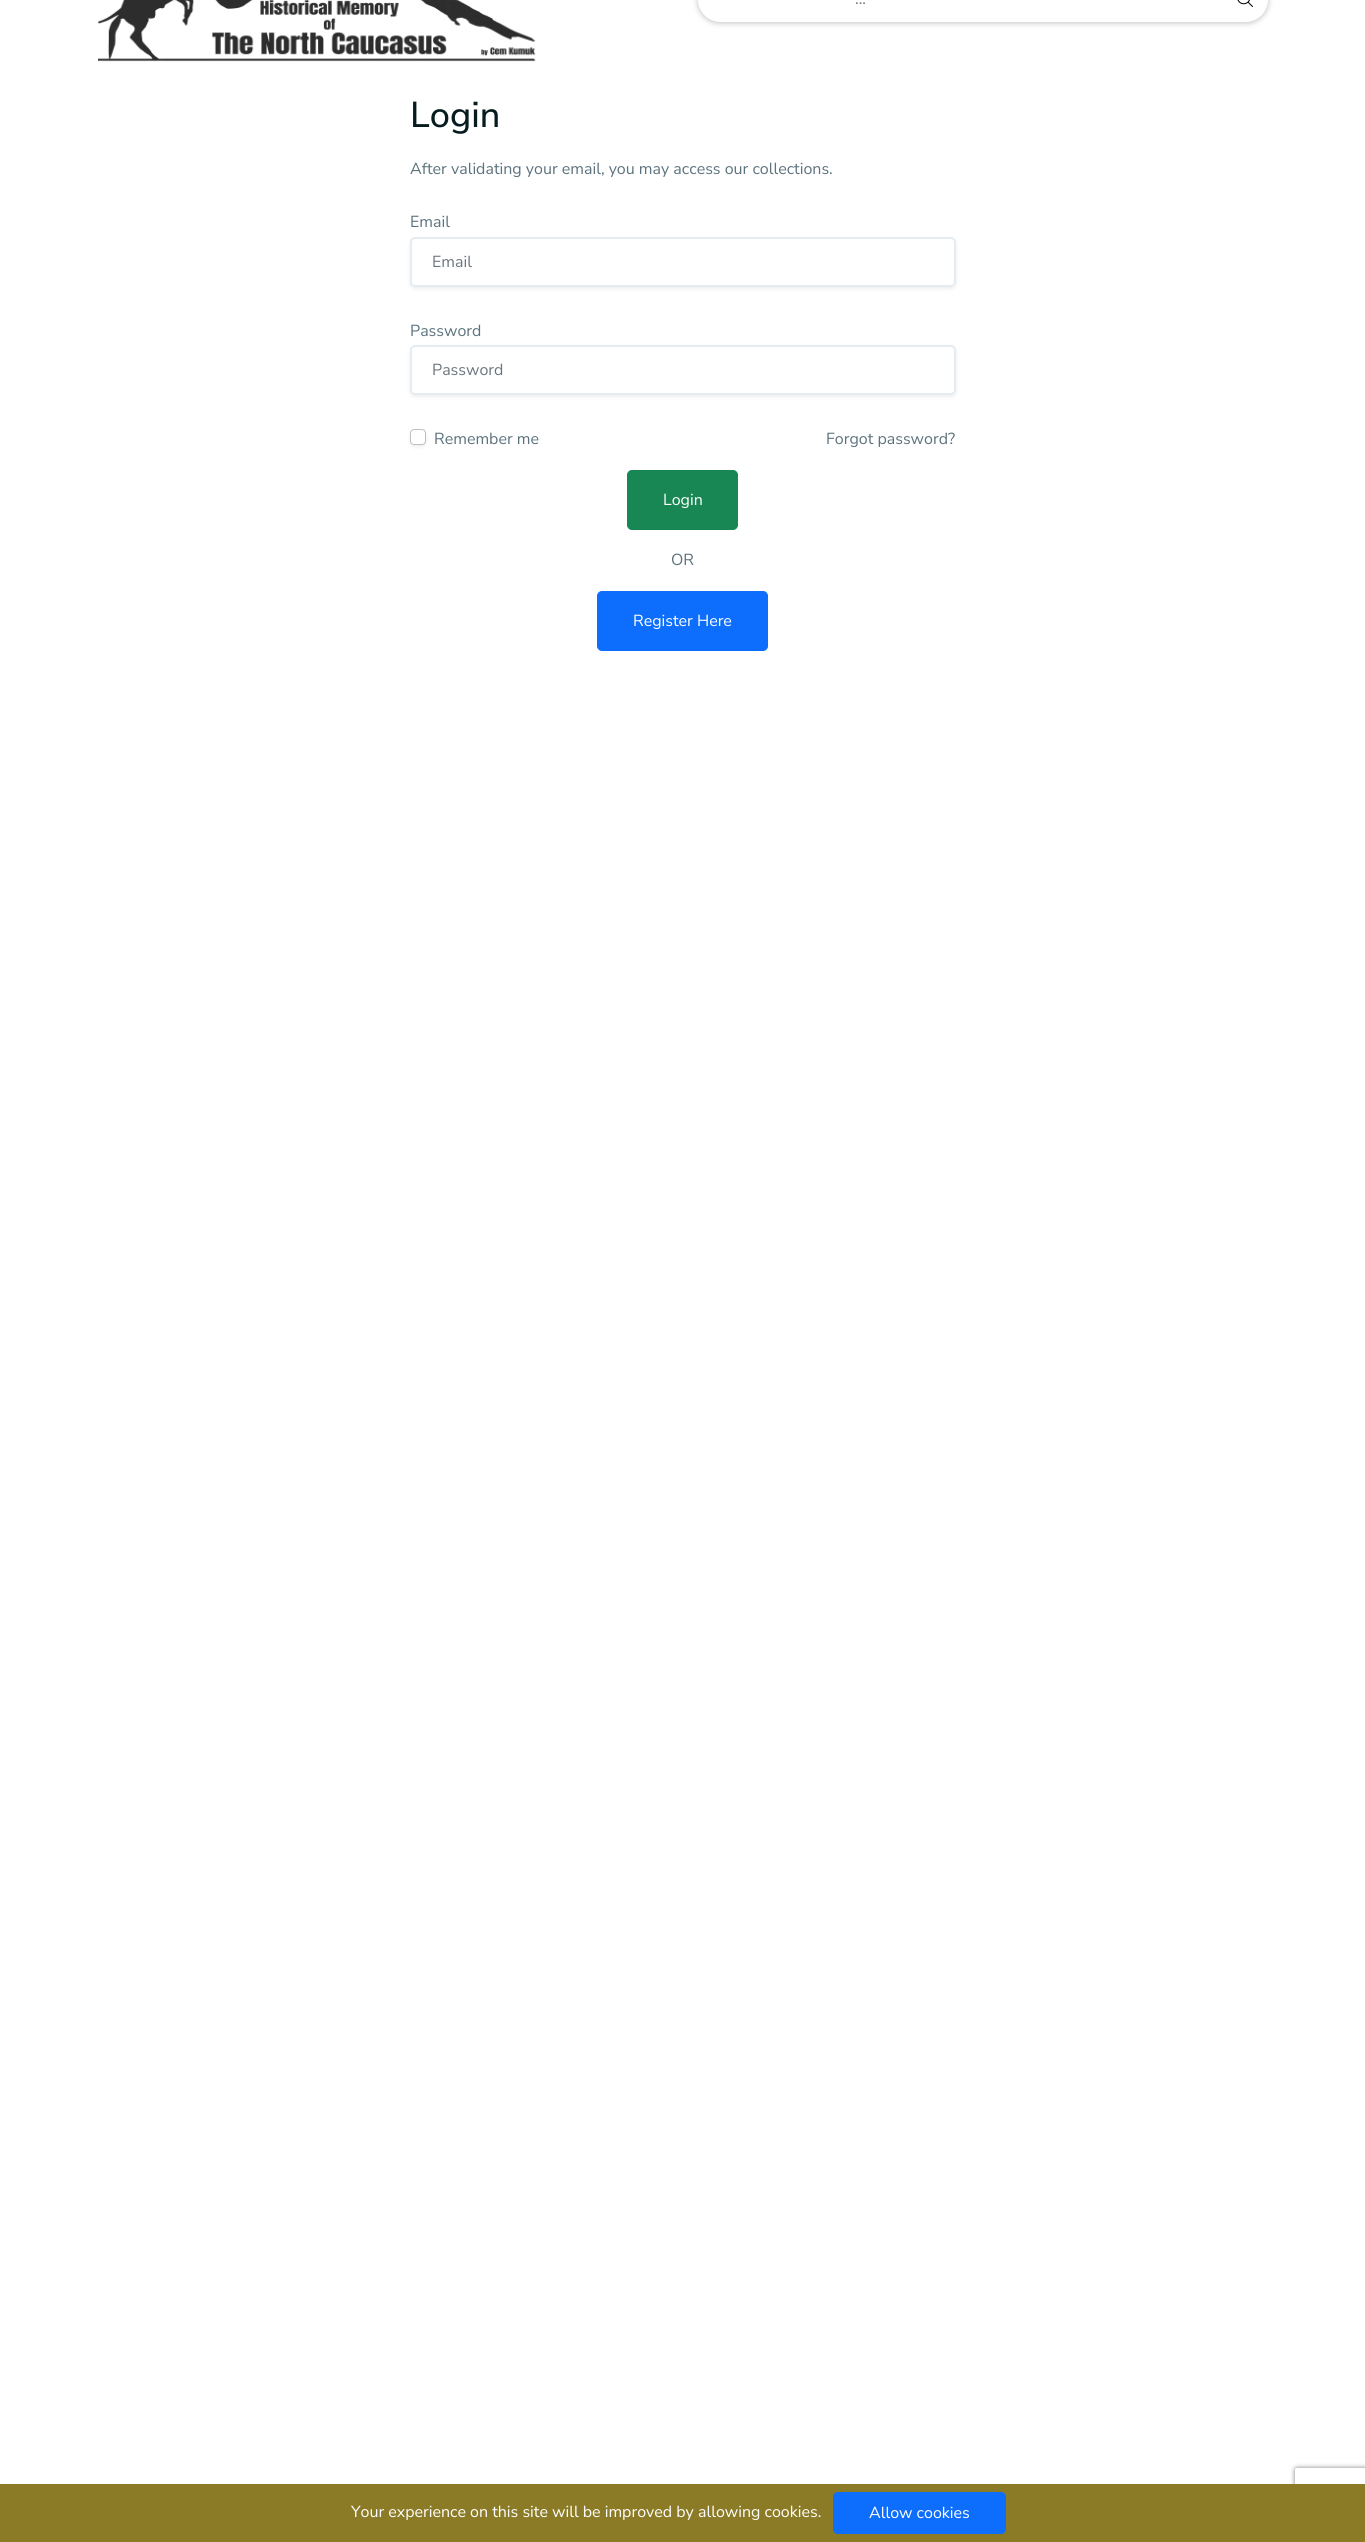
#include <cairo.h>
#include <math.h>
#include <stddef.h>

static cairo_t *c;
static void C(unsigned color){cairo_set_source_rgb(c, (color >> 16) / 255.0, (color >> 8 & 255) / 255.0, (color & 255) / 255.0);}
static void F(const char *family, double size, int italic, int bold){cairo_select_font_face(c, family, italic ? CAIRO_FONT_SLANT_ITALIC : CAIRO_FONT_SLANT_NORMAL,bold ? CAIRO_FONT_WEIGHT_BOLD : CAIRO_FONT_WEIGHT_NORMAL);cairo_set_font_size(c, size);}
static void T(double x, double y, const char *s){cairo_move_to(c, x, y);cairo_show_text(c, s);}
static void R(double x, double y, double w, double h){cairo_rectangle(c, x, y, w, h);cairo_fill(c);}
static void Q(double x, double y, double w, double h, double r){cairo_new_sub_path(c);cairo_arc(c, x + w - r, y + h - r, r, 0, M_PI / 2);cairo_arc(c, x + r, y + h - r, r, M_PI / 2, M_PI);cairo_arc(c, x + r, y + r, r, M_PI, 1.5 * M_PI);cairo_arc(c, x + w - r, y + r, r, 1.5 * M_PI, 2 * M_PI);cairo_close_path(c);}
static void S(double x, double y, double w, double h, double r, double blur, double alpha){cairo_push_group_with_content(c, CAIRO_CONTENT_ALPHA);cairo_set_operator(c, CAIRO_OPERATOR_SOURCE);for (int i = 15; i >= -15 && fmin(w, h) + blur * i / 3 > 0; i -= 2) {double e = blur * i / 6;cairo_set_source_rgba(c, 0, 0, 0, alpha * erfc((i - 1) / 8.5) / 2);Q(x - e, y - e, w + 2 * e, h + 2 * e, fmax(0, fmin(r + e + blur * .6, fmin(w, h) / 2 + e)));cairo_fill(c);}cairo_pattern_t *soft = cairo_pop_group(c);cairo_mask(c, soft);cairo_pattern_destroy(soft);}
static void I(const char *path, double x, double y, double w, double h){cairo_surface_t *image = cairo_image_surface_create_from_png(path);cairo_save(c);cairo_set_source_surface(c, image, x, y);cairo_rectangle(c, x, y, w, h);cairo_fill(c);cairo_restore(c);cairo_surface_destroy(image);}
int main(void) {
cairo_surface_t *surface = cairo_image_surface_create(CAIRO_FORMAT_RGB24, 1365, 2542);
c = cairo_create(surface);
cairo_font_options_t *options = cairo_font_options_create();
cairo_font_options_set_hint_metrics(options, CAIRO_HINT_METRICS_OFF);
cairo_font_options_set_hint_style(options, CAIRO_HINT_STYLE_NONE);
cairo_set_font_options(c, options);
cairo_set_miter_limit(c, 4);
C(0xffffff);
cairo_paint(c);
I("1.png",98,0,438,62);
C(0x202124);
S(698,-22,570,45,22.5,3,.28);
C(0xffffff);
Q(698,-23,570,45,22.5);
cairo_fill(c);
F("Nunito Sans",16,0,0);
C(0x757575);
T(855,4,"...");
I("2.png",1237,0,16,7);
F("Nunito Sans Medium",36,0,0);
C(0x071c1f);
T(410,127,"Login");
F("Nunito Sans",16,0,0);
C(0x5c727d);
T(410,174,"After validating your email, you may access our collections.");
T(410,227,"Email");
cairo_save(c);
cairo_set_fill_rule(c,CAIRO_FILL_RULE_EVEN_ODD);
cairo_new_path(c);
cairo_move_to(c,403,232);
cairo_line_to(c,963,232);
cairo_line_to(c,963,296);
cairo_line_to(c,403,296);
cairo_close_path(c);
cairo_move_to(c,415,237);
cairo_line_to(c,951,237);
cairo_curve_to(c,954,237,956,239,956,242);
cairo_line_to(c,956,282);
cairo_curve_to(c,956,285,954,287,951,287);
cairo_line_to(c,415,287);
cairo_curve_to(c,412,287,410,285,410,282);
cairo_line_to(c,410,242);
cairo_curve_to(c,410,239,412,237,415,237);
cairo_close_path(c);
cairo_clip(c);
C(0x000000);
S(410,239,546,50,5,2,.07);
cairo_restore(c);
Q(411,238,544,48,4);
C(0xe4ecf2);
cairo_stroke(c);
C(0x6c757d);
T(432,267,"Email");
C(0x5c727d);
T(410,336,"Password");
cairo_save(c);
cairo_set_fill_rule(c,CAIRO_FILL_RULE_EVEN_ODD);
cairo_new_path(c);
cairo_move_to(c,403,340);
cairo_line_to(c,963,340);
cairo_line_to(c,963,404);
cairo_line_to(c,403,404);
cairo_close_path(c);
cairo_move_to(c,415,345);
cairo_line_to(c,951,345);
cairo_curve_to(c,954,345,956,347,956,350);
cairo_line_to(c,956,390);
cairo_curve_to(c,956,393,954,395,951,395);
cairo_line_to(c,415,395);
cairo_curve_to(c,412,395,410,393,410,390);
cairo_line_to(c,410,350);
cairo_curve_to(c,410,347,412,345,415,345);
cairo_close_path(c);
cairo_clip(c);
C(0x000000);
S(410,347,546,50,5,2,.07);
cairo_restore(c);
Q(411,346,544,48,4);
C(0xe4ecf2);
cairo_stroke(c);
C(0x6c757d);
T(432,375,"Password");
C(0x000000);
S(410,431,16,16,4,2,.07);
C(0xffffff);
Q(410.5,429.5,15,15,3.5);
cairo_fill_preserve(c);
C(0xbfbfbf);
cairo_set_line_width(c,1);
cairo_stroke(c);
C(0x5c727d);
T(434,444,"Remember me");
T(826,444,"Forgot password?");
C(0x198754);
Q(627.5,470.5,110,59,4.5);
cairo_fill_preserve(c);
cairo_stroke(c);
C(0xffffff);
T(663,505,"Login");
cairo_save(c);
cairo_set_fill_rule(c,CAIRO_FILL_RULE_EVEN_ODD);
cairo_new_path(c);
cairo_move_to(c,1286,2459);
cairo_line_to(c,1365,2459);
cairo_line_to(c,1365,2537);
cairo_line_to(c,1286,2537);
cairo_close_path(c);
cairo_move_to(c,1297,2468);
cairo_line_to(c,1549,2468);
cairo_curve_to(c,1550,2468,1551,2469,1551,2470);
cairo_line_to(c,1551,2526);
cairo_curve_to(c,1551,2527,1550,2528,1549,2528);
cairo_line_to(c,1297,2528);
cairo_curve_to(c,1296,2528,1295,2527,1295,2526);
cairo_line_to(c,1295,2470);
cairo_curve_to(c,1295,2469,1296,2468,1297,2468);
cairo_close_path(c);
cairo_clip(c);
C(0x808080);
S(1295,2468,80,60,2,2.5,1);
cairo_restore(c);
C(0x5c727d);
T(671,565,"OR");
C(0x0d6efd);
Q(597.5,591.5,170,59,4.5);
cairo_fill_preserve(c);
cairo_stroke(c);
C(0xffffff);
T(633,626,"Register Here");
C(0x8c7b26);
R(0,2484,1365,58);
C(0xffffff);
T(351,2517,"Your experience on this site will be improved by allowing cookies.");
C(0x0d6efd);
Q(833.5,2492.5,172,41,4.5);
cairo_fill_preserve(c);
cairo_stroke(c);
C(0xffffff);
T(869,2518,"Allow cookies");
cairo_surface_write_to_png(surface, "o.png");
cairo_font_options_destroy(options);
cairo_destroy(c);
cairo_surface_destroy(surface);
return 0;
}
